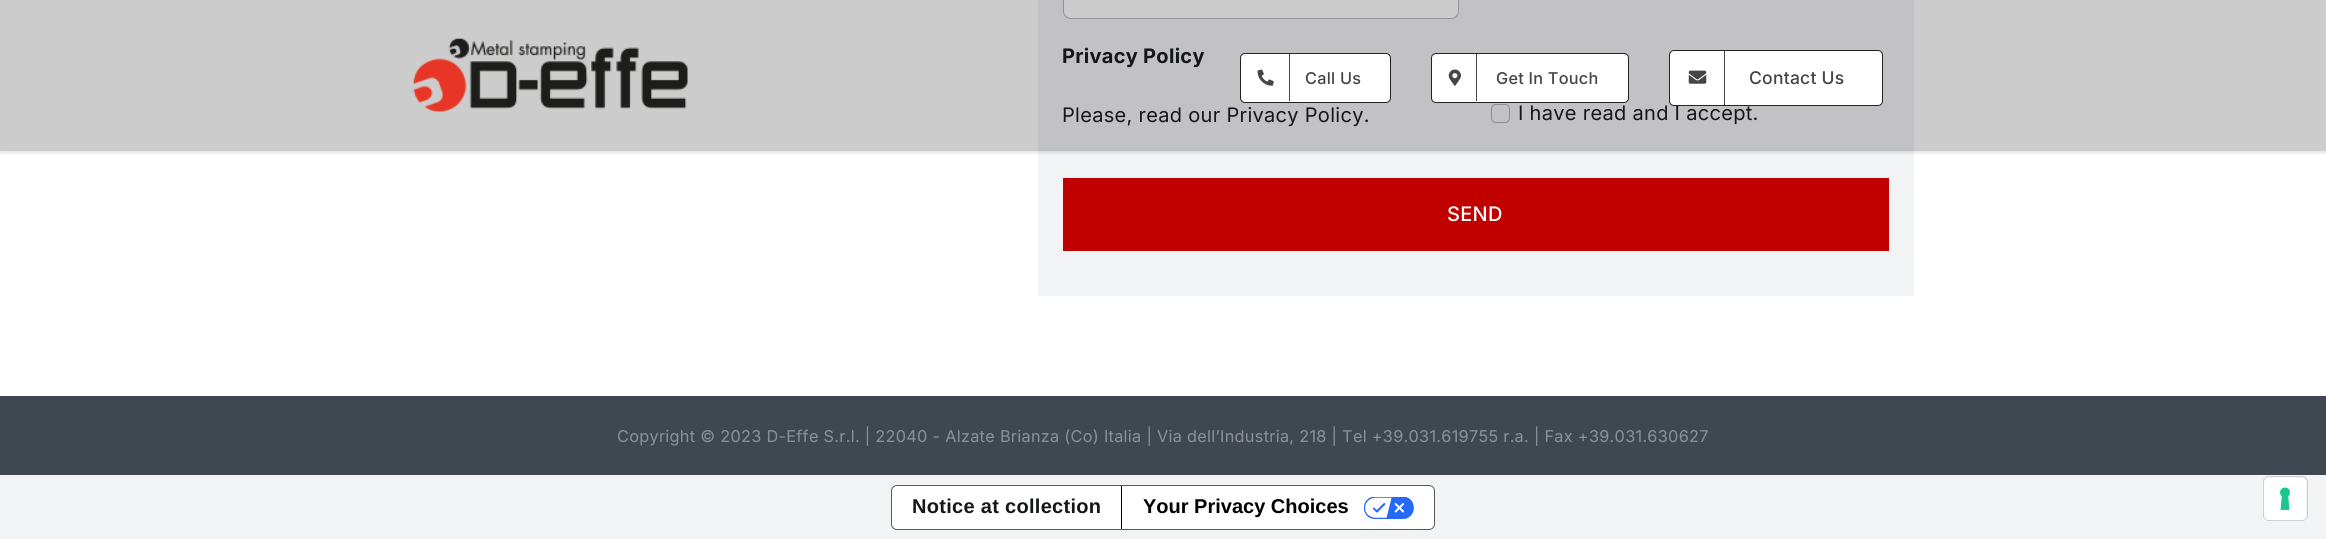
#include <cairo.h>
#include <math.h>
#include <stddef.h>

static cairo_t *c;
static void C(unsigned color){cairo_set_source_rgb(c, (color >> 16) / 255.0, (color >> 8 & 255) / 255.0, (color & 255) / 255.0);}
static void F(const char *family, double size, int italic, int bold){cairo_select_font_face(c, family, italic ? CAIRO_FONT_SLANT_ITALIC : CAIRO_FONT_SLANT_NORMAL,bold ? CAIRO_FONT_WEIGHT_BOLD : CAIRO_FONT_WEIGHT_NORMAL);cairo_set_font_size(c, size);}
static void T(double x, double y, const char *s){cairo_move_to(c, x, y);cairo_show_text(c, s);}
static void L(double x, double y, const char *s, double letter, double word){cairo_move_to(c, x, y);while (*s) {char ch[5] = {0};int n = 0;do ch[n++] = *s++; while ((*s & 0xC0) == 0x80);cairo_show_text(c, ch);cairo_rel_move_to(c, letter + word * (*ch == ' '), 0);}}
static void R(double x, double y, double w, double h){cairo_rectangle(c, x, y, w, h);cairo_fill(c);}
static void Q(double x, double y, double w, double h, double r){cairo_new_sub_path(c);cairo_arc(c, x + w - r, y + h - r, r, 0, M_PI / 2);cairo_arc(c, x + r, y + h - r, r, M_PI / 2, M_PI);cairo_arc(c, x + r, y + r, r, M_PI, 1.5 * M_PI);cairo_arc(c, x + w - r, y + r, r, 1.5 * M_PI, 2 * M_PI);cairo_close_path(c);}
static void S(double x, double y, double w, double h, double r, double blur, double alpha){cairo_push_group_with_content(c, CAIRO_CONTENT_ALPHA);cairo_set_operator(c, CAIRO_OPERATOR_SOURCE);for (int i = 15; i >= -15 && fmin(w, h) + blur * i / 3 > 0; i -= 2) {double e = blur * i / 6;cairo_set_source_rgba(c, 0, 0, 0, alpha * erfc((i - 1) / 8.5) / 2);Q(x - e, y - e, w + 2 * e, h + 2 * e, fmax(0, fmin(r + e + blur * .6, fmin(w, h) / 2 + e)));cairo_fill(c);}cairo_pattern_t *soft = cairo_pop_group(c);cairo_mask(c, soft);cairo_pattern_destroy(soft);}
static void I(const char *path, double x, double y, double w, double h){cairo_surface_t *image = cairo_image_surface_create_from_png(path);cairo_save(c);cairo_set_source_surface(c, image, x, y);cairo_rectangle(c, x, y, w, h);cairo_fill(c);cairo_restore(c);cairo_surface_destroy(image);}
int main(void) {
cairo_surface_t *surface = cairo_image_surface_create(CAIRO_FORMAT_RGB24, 2326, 539);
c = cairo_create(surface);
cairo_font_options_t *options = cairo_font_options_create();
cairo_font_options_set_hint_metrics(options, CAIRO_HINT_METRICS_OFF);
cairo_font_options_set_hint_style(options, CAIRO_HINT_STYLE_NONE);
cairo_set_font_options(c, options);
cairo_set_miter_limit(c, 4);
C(0xf2f3f5);
cairo_paint(c);
C(0xffffff);
R(0,151,2326,245);
C(0xcccccc);
R(0,0,2326,151);
C(0xf2f3f5);
R(1038,151,876,145);
C(0xc2c2c4);
R(1038,0,876,151);
C(0xcccccc);
Q(1063,-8,396,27,8);
cairo_fill(c);
Q(1063.5,-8.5,395,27,7.5);
cairo_set_source_rgba(c,0.059,0.067,0.071,0.3);
cairo_set_line_width(c,1);
cairo_stroke(c);
F("Inter",20,0,1);
C(0x141617);
L(1062,63,"Privacy Policy",.3,0);
F("Inter",20,0,0);
L(1062,122,"Please, read our Privacy Policy.",.3,0);
Q(1491.5,104.5,18,18,4.5);
C(0x8c8d8e);
cairo_stroke(c);
C(0x141617);
L(1518,120,"I have read and I accept.",.3,0);
C(0xc10000);
R(1063,178,826,73);
F("Inter Medium",20,0,0);
C(0xffffff);
L(1447,221,"SEND",.3,0);
cairo_save(c);
cairo_rectangle(c,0,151,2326,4);
cairo_clip(c);
C(0x000000);
S(0,1,2326,152,0,2,.12);
cairo_restore(c);
I("1.png",413,38,275,74);
Q(1240.5,53.5,150,49,4.5);
cairo_fill_preserve(c);
C(0x212326);
cairo_stroke(c);
C(0x434549);
R(1289,54,1,47);
I("2.png",1257,69,17,17);
F("Inter Medium",16.25,0,0);
L(1305,84,"Call Us",.25,0);
C(0xffffff);
Q(1431.5,53.5,197,49,4.5);
cairo_fill_preserve(c);
C(0x212326);
cairo_stroke(c);
C(0x434549);
R(1476,54,1,47);
I("3.png",1448,69,13,17);
L(1496,84,"Get In Touch",.25,0);
C(0xffffff);
Q(1669.5,50.5,213,55,4.5);
cairo_fill_preserve(c);
C(0x212326);
cairo_stroke(c);
C(0x434549);
R(1724,51,1,54);
I("4.png",1688,70,19,14);
F("Inter Medium",17.5,0,0);
L(1749,84,"Contact Us",.25,0);
C(0x3f4851);
R(0,396,2326,79);
F("Inter",16.25,0,0);
C(0x8c9197);
L(617,442,"Copyright © 2023 D-Effe S.r.l. | 22040 - Alzate Brianza (Co) Italia | Via dell’Industria, 218 | Tel +39.031.619755 r.a. | Fax +39.031.630627",.3,0);
C(0xffffff);
Q(891.5,485.5,543,44,5.5);
cairo_fill_preserve(c);
C(0x595959);
cairo_stroke(c);
F("Liberation Sans",20,0,1);
C(0x141617);
L(912,513,"Notice at collection",.3,0);
C(0x000000);
R(1121,486,1,43);
T(1143,513,"Your Privacy Choices");
I("5.png",1364,497,50,22);
Q(2263.5,476.5,44,44,5.5);
C(0xcecfd0);
cairo_stroke(c);
C(0xffffff);
Q(2264,478,42,42,5);
cairo_fill(c);
I("6.png",2280,487,10,23);
cairo_surface_write_to_png(surface, "o.png");
cairo_font_options_destroy(options);
cairo_destroy(c);
cairo_surface_destroy(surface);
return 0;
}
